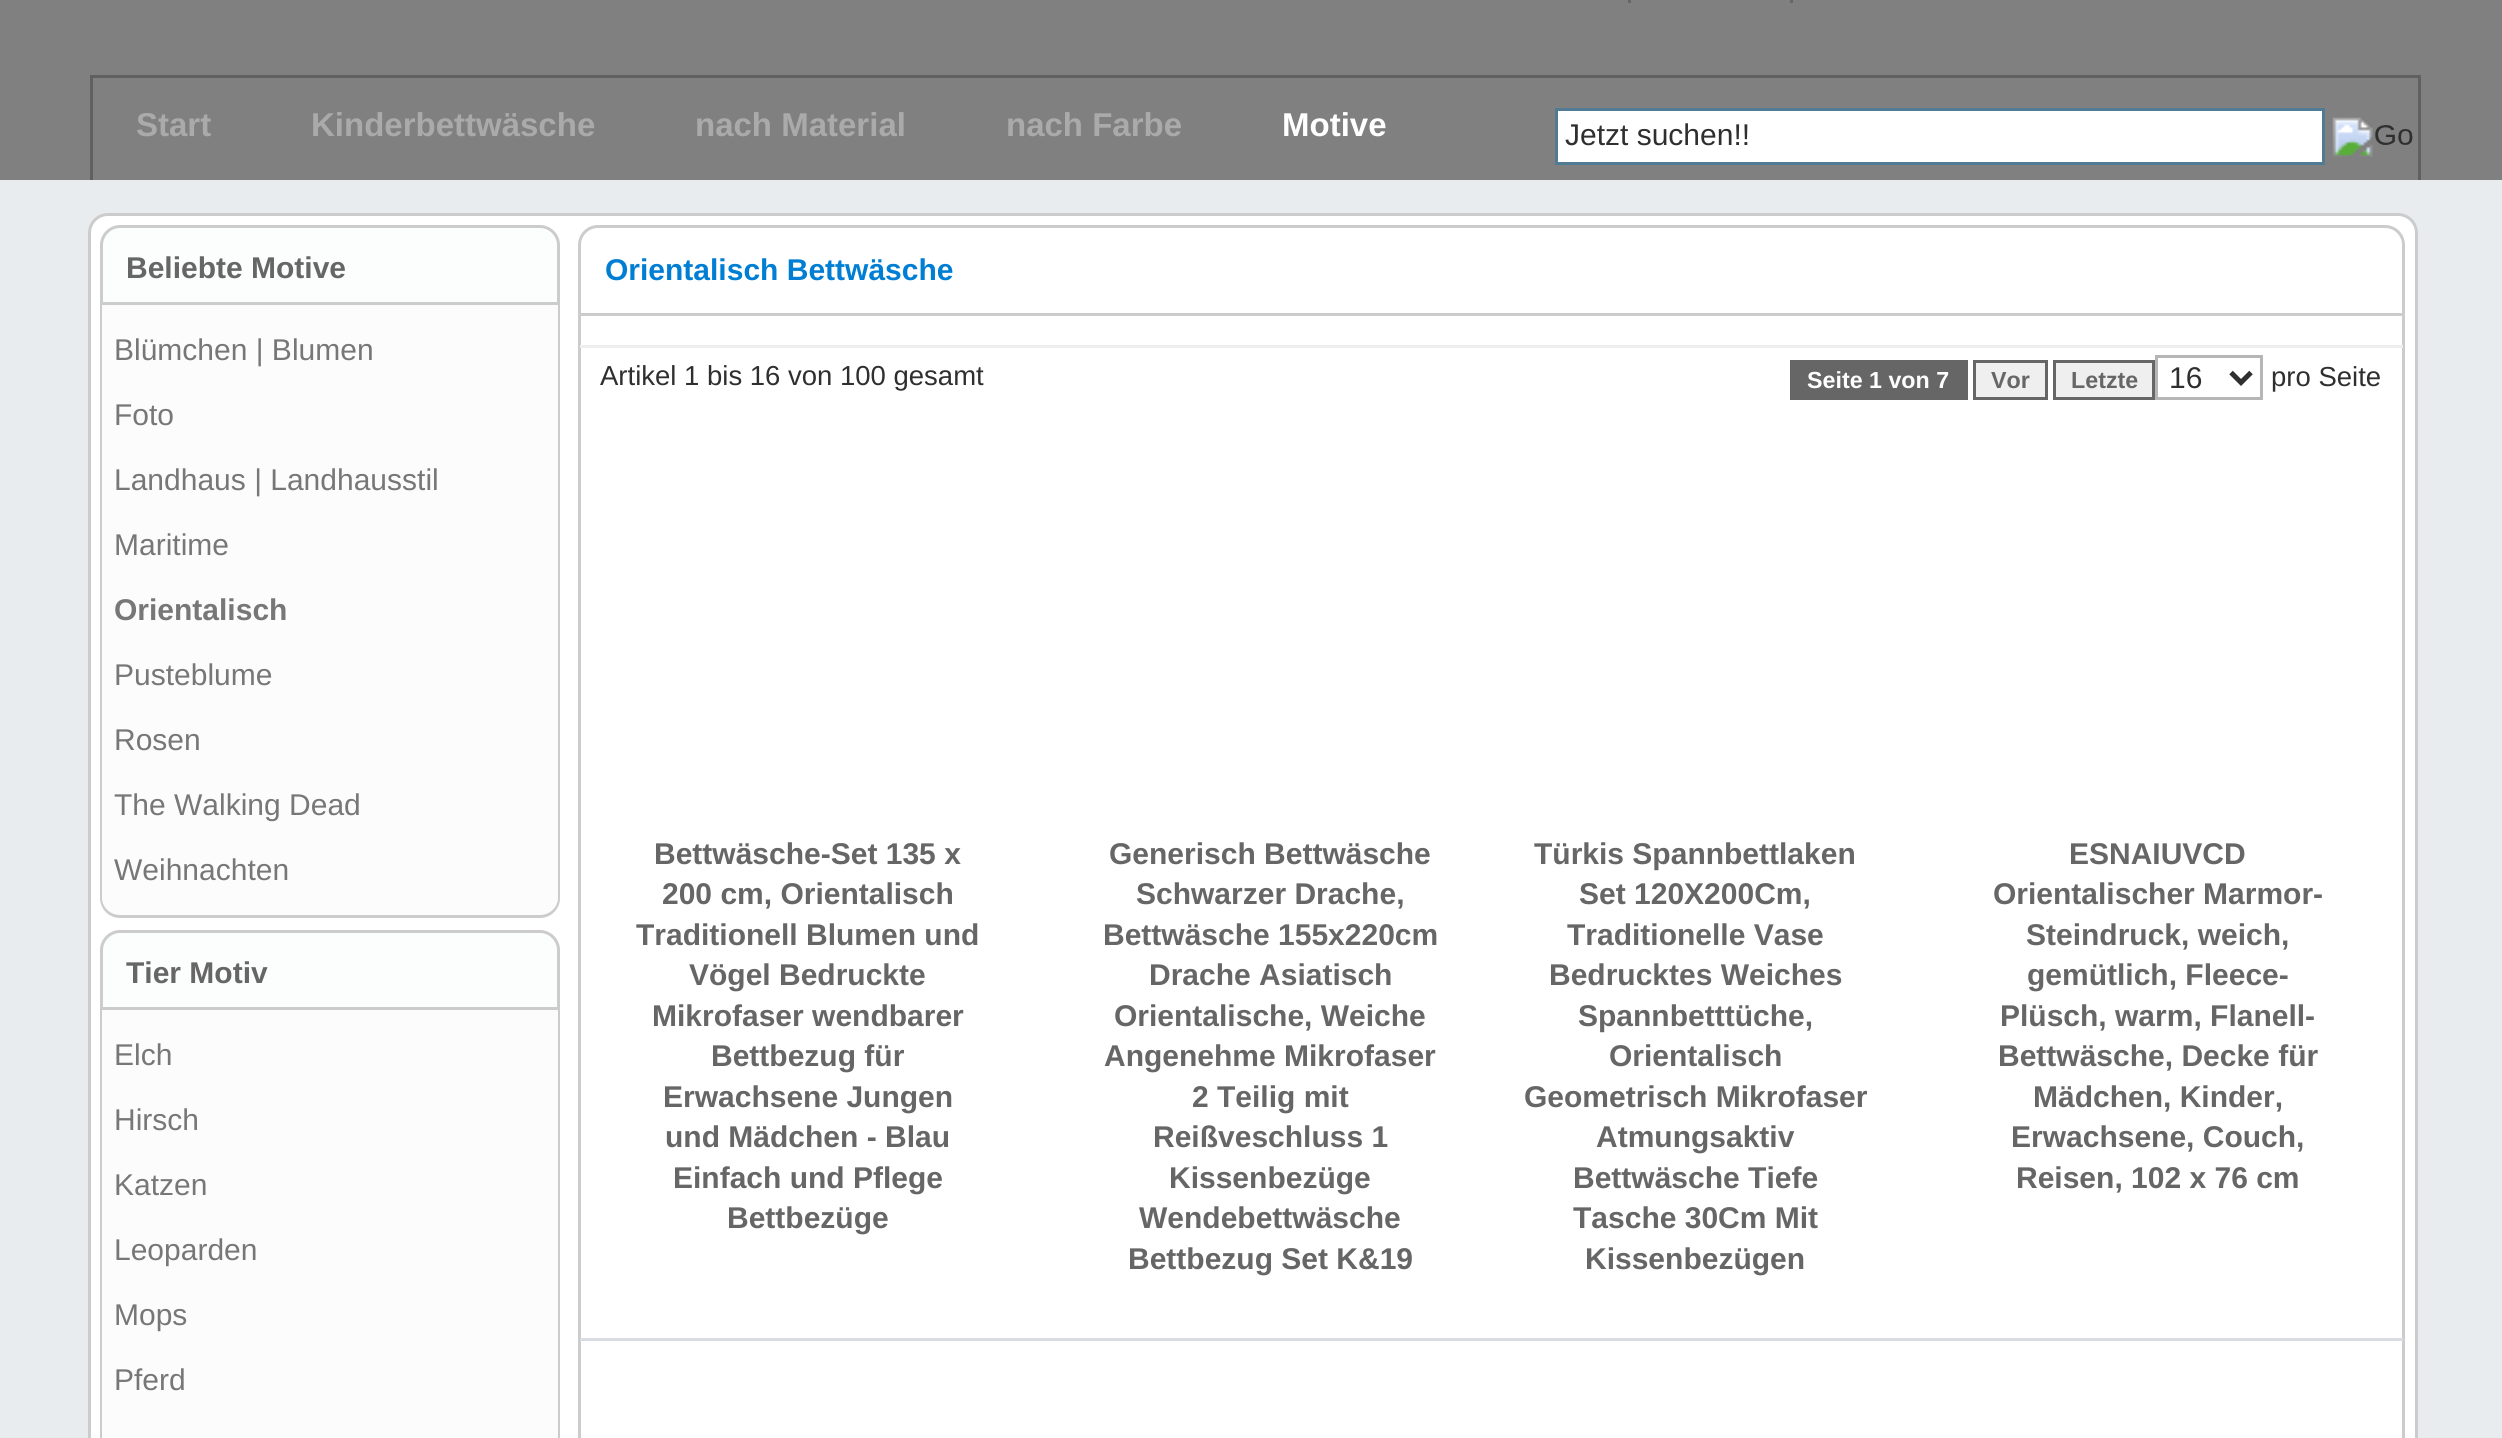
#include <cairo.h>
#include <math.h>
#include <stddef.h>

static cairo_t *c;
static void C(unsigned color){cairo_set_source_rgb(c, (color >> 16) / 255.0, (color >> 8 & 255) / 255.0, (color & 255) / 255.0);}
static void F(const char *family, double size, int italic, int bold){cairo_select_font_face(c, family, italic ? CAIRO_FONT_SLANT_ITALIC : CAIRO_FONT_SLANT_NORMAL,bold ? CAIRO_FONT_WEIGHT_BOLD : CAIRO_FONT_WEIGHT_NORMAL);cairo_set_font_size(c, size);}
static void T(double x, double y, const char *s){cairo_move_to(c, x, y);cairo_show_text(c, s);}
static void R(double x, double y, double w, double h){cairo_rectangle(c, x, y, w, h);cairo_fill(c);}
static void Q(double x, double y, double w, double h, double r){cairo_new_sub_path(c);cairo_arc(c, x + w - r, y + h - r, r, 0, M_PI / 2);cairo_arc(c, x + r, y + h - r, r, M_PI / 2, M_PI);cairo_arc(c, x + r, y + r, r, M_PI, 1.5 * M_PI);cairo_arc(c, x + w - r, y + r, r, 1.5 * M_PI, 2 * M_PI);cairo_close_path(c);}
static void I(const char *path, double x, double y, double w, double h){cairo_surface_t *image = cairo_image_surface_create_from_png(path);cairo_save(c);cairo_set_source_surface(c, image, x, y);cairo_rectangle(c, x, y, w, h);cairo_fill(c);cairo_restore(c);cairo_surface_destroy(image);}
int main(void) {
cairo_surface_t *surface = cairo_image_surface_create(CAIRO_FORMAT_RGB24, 2502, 1438);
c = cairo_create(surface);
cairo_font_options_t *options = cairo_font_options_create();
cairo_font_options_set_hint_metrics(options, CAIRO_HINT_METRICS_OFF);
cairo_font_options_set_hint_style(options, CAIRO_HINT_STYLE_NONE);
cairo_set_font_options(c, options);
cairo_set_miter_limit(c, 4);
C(0x808080);
cairo_paint(c);
C(0x666666);
R(1628,0,3,3);
R(1790,0,3,3);
C(0x606060);
R(90,75,2330,3);
R(2418,75,3,105);
R(90,75,3,105);
F("Liberation Sans",33,0,1);
C(0xaaaaaa);
T(136,136,"Start");
T(311,136,"Kinderbettwäsche");
T(695,136,"nach Material");
T(1006,136,"nach Farbe");
C(0xffffff);
T(1282,136,"Motive");
cairo_rectangle(c,1556.5,109.5,767,54);
cairo_fill_preserve(c);
C(0x517b92);
cairo_set_line_width(c,3);
cairo_stroke(c);
F("Liberation Sans",30,0,0);
C(0x2f2f2f);
T(1565,145,"Jetzt suchen!!");
I("1.png",2332,117,81,40);
C(0xe9ecee);
R(0,180,2502,1258);
C(0xffffff);
Q(89.5,214.5,2327,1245,18.5);
cairo_fill_preserve(c);
C(0xcccccc);
cairo_stroke(c);
C(0xfcfdfd);
cairo_new_path(c);
cairo_move_to(c,120,226.5);
cairo_line_to(c,540,226.5);
cairo_curve_to(c,550,226.5,558.5,235,558.5,245);
cairo_line_to(c,558.5,303.5);
cairo_line_to(c,101.5,303.5);
cairo_line_to(c,101.5,245);
cairo_curve_to(c,101.5,235,110,226.5,120,226.5);
cairo_close_path(c);
cairo_fill_preserve(c);
C(0xcccccc);
cairo_stroke(c);
F("Liberation Sans",30,0,1);
C(0x666666);
T(126,278,"Beliebte Motive");
C(0xfcfcfc);
cairo_new_path(c);
cairo_move_to(c,100,305);
cairo_line_to(c,560,305);
cairo_line_to(c,560,898);
cairo_curve_to(c,560,909,551,918,540,918);
cairo_line_to(c,120,918);
cairo_curve_to(c,109,918,100,909,100,898);
cairo_close_path(c);
cairo_fill(c);
C(0xcccccc);
cairo_set_fill_rule(c,CAIRO_FILL_RULE_EVEN_ODD);
cairo_new_path(c);
cairo_move_to(c,100,305);
cairo_line_to(c,560,305);
cairo_line_to(c,560,898);
cairo_curve_to(c,560,909,551,918,540,918);
cairo_line_to(c,120,918);
cairo_curve_to(c,109,918,100,909,100,898);
cairo_close_path(c);
cairo_move_to(c,102,305);
cairo_line_to(c,558,305);
cairo_line_to(c,558,898);
cairo_curve_to(c,558,907,550,915,540,915);
cairo_line_to(c,120,915);
cairo_curve_to(c,110,915,102,907,102,898);
cairo_close_path(c);
cairo_fill(c);
F("Liberation Sans",30,0,0);
C(0x777777);
T(114,360,"Blümchen | Blumen");
T(114,425,"Foto");
T(114,490,"Landhaus | Landhausstil");
T(114,555,"Maritime");
F("Liberation Sans",30,0,1);
T(114,620,"Orientalisch");
F("Liberation Sans",30,0,0);
T(114,685,"Pusteblume");
T(114,750,"Rosen");
T(114,815,"The Walking Dead");
T(114,880,"Weihnachten");
C(0xfcfdfd);
cairo_new_path(c);
cairo_move_to(c,120,931.5);
cairo_line_to(c,540,931.5);
cairo_curve_to(c,550,931.5,558.5,940,558.5,950);
cairo_line_to(c,558.5,1008.5);
cairo_line_to(c,101.5,1008.5);
cairo_line_to(c,101.5,950);
cairo_curve_to(c,101.5,940,110,931.5,120,931.5);
cairo_close_path(c);
cairo_fill_preserve(c);
C(0xcccccc);
cairo_stroke(c);
F("Liberation Sans",30,0,1);
C(0x666666);
T(126,983,"Tier Motiv");
C(0xfcfcfc);
R(102,1010,456,428);
C(0xcccccc);
cairo_new_path(c);
cairo_move_to(c,100,1010);
cairo_line_to(c,560,1010);
cairo_line_to(c,560,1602);
cairo_curve_to(c,560,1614,551,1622,540,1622);
cairo_line_to(c,120,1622);
cairo_curve_to(c,109,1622,100,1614,100,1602);
cairo_close_path(c);
cairo_move_to(c,102,1010);
cairo_line_to(c,558,1010);
cairo_line_to(c,558,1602);
cairo_curve_to(c,558,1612,550,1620,540,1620);
cairo_line_to(c,120,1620);
cairo_curve_to(c,110,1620,102,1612,102,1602);
cairo_close_path(c);
cairo_fill(c);
F("Liberation Sans",30,0,0);
C(0x777777);
T(114,1065,"Elch");
T(114,1130,"Hirsch");
T(114,1195,"Katzen");
T(114,1260,"Leoparden");
T(114,1325,"Mops");
T(114,1390,"Pferd");
Q(579.5,226.5,1824,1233,18.5);
C(0xcccccc);
cairo_stroke(c);
R(580,313,1823,3);
F("Liberation Sans",30,0,1);
C(0x007ed3);
T(605,280,"Orientalisch Bettwäsche");
C(0xeeeeee);
R(580,345,1823,3);
F("Liberation Sans",27.5,0,0);
C(0x2f2f2f);
T(600,385,"Artikel 1 bis 16 von 100 gesamt");
C(0x666666);
R(1790,360,178,40);
F("Liberation Sans",23.25,0,1);
C(0xffffff);
T(1807,388,"Seite 1 von 7");
C(0xefefef);
cairo_rectangle(c,1974.5,361.5,72,37);
cairo_fill_preserve(c);
C(0x666666);
cairo_stroke(c);
T(1991,388,"Vor");
C(0xefefef);
cairo_rectangle(c,2054.5,361.5,99,37);
cairo_fill_preserve(c);
C(0x666666);
cairo_stroke(c);
T(2071,388,"Letzte");
cairo_rectangle(c,2156.5,356.5,105,42);
C(0xb6b6b6);
cairo_stroke(c);
cairo_new_path(c);
cairo_move_to(c,2231,372.5);
cairo_line_to(c,2241,382.5);
cairo_line_to(c,2251,372.5);
C(0x2f2f2f);
cairo_set_line_width(c,5);
cairo_stroke(c);
F("Liberation Sans",30,0,0);
T(2169,388,"16");
F("Liberation Sans",27.5,0,0);
T(2271,386,"pro Seite");
C(0xd9dde3);
R(580,1338,1823,3);
F("Liberation Sans",30,0,1);
C(0x666666);
T(654,864,"Bettwäsche-Set 135 x");
T(662,904,"200 cm, Orientalisch");
T(636,945,"Traditionell Blumen und");
T(689,985,"Vögel Bedruckte");
T(652,1026,"Mikrofaser wendbarer");
T(711,1066,"Bettbezug für");
T(663,1107,"Erwachsene Jungen");
T(665,1147,"und Mädchen - Blau");
T(673,1188,"Einfach und Pflege");
T(727,1228,"Bettbezüge");
T(1109,864,"Generisch Bettwäsche");
T(1136,904,"Schwarzer Drache,");
T(1103,945,"Bettwäsche 155x220cm");
T(1149,985,"Drache Asiatisch");
T(1114,1026,"Orientalische, Weiche");
T(1104,1066,"Angenehme Mikrofaser");
T(1192,1107,"2 Teilig mit");
T(1153,1147,"Reißveschluss 1");
T(1169,1188,"Kissenbezüge");
T(1139,1228,"Wendebettwäsche");
T(1128,1269,"Bettbezug Set K&19");
T(1534,864,"Türkis Spannbettlaken");
T(1579,904,"Set 120X200Cm,");
T(1567,945,"Traditionelle Vase");
T(1549,985,"Bedrucktes Weiches");
T(1578,1026,"Spannbetttüche,");
T(1609,1066,"Orientalisch");
T(1524,1107,"Geometrisch Mikrofaser");
T(1596,1147,"Atmungsaktiv");
T(1573,1188,"Bettwäsche Tiefe");
T(1573,1228,"Tasche 30Cm Mit");
T(1585,1269,"Kissenbezügen");
T(2069,864,"ESNAIUVCD");
T(1993,904,"Orientalischer Marmor-");
T(2026,945,"Steindruck, weich,");
T(2027,985,"gemütlich, Fleece-");
T(2000,1026,"Plüsch, warm, Flanell-");
T(1998,1066,"Bettwäsche, Decke für");
T(2033,1107,"Mädchen, Kinder,");
T(2011,1147,"Erwachsene, Couch,");
T(2016,1188,"Reisen, 102 x 76 cm");
cairo_surface_write_to_png(surface, "o.png");
cairo_font_options_destroy(options);
cairo_destroy(c);
cairo_surface_destroy(surface);
return 0;
}
